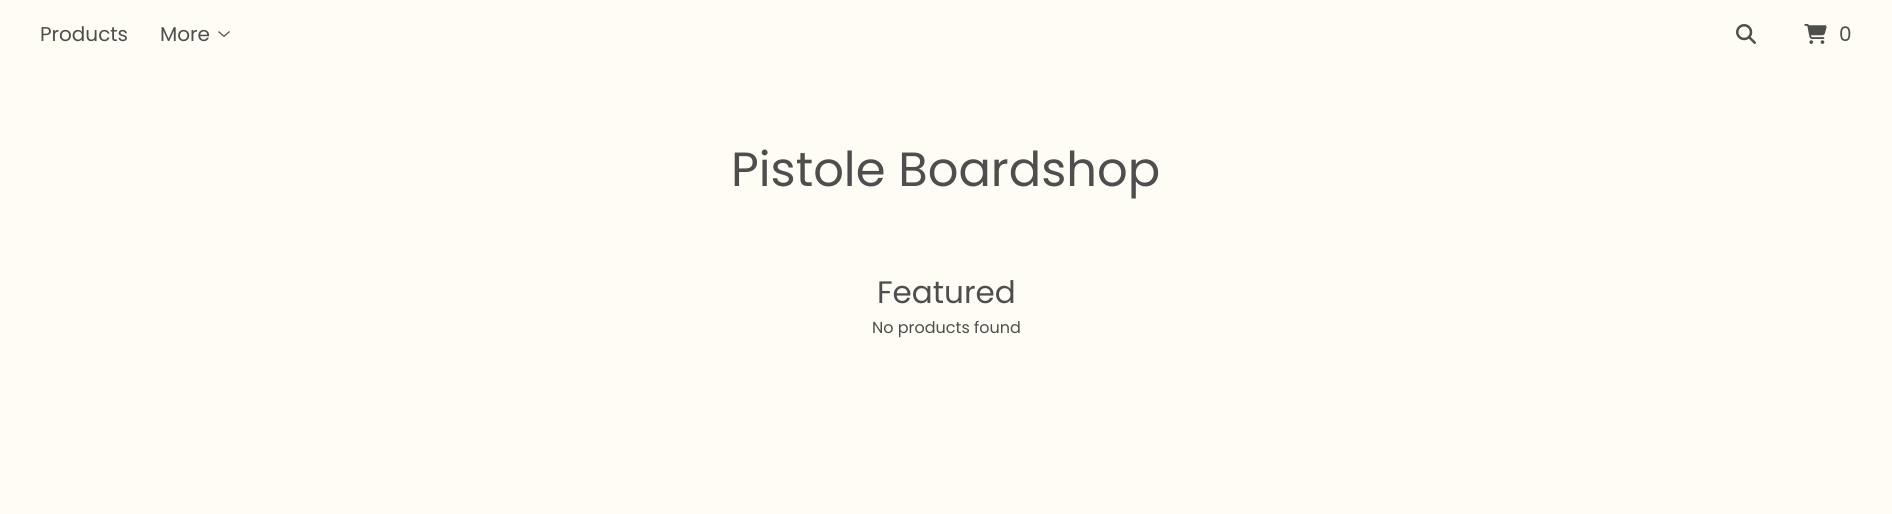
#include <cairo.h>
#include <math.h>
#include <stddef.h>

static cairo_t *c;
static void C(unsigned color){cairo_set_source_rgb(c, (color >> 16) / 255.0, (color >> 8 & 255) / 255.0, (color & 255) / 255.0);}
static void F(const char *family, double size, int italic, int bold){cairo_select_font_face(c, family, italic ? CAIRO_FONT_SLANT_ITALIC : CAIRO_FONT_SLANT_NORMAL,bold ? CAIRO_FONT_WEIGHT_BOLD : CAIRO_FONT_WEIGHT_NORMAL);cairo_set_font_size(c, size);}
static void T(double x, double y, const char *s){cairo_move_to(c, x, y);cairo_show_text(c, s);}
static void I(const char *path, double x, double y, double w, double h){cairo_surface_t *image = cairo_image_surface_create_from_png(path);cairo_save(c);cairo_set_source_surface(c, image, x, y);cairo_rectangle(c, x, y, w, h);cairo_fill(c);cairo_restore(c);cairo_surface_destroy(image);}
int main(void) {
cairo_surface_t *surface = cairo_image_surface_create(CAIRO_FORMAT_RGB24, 1892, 514);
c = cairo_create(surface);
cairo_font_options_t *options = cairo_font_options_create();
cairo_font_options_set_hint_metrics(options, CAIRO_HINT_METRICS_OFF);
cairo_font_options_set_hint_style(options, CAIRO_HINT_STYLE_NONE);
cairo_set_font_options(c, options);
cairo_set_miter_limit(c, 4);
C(0xfffbf5);
cairo_paint(c);
F("Poppins",20,0,0);
C(0x4e4e4e);
T(40,41,"Products");
T(160,41,"More");
I("1.png",218,31,12,6);
I("2.png",1736,24,20,20);
I("3.png",1804,24,23,20);
T(1839,41,"0");
F("Poppins",48,0,0);
T(731,186,"Pistole Boardshop");
F("Poppins",31,0,0);
T(877,303,"Featured");
F("Poppins",16,0,0);
T(872,333,"No products found");
cairo_surface_write_to_png(surface, "o.png");
cairo_font_options_destroy(options);
cairo_destroy(c);
cairo_surface_destroy(surface);
return 0;
}
